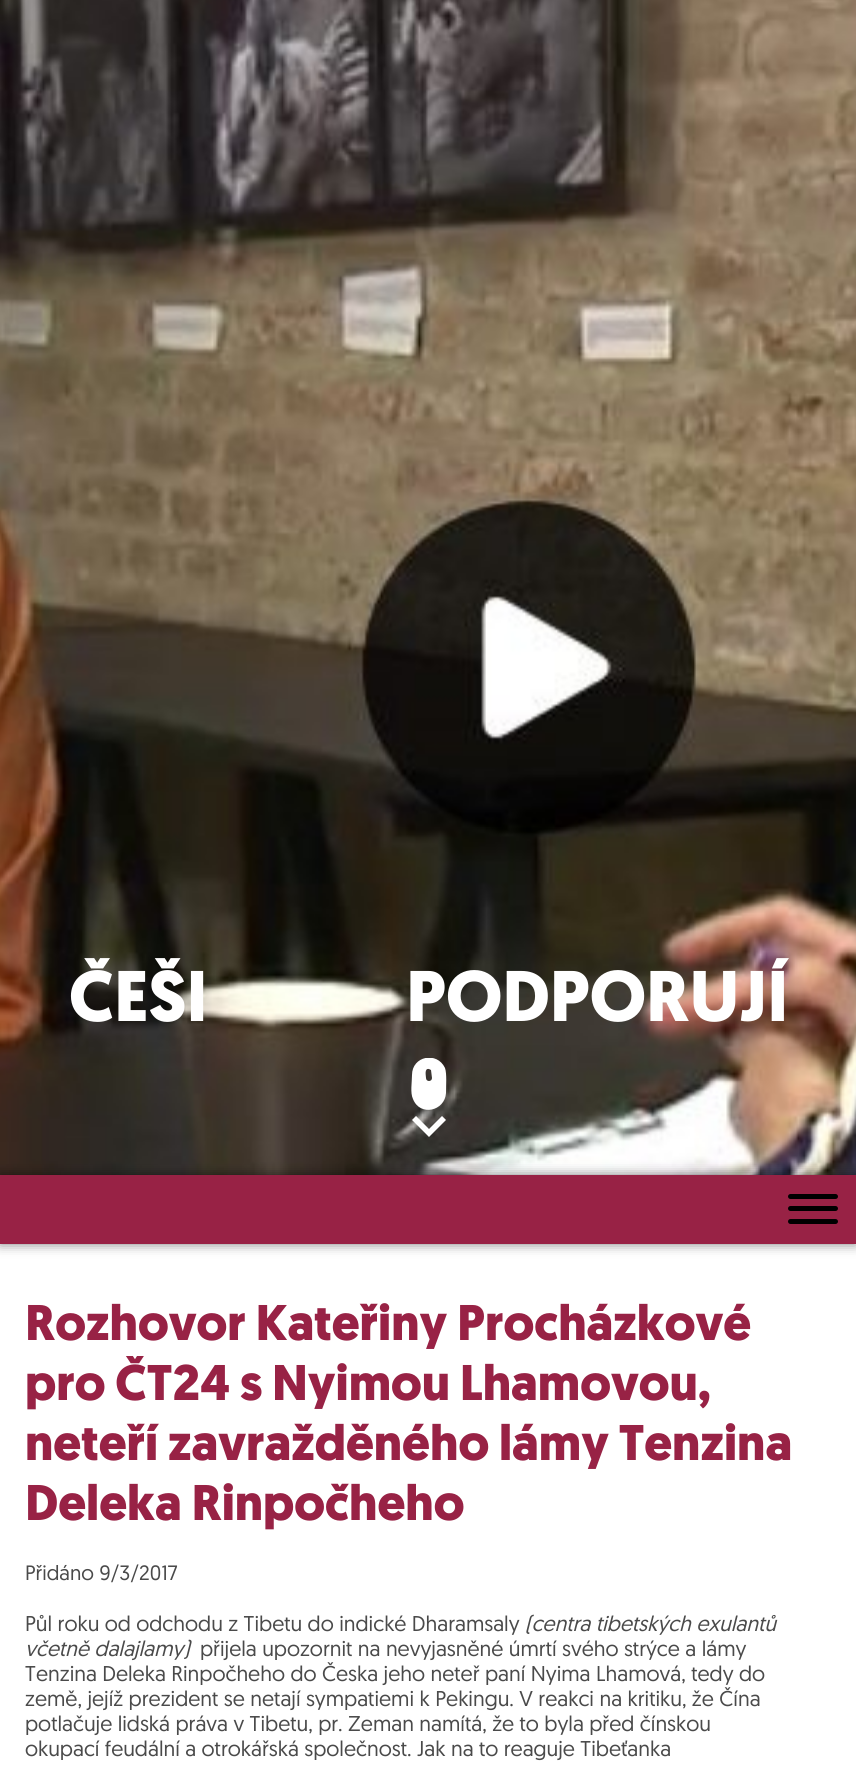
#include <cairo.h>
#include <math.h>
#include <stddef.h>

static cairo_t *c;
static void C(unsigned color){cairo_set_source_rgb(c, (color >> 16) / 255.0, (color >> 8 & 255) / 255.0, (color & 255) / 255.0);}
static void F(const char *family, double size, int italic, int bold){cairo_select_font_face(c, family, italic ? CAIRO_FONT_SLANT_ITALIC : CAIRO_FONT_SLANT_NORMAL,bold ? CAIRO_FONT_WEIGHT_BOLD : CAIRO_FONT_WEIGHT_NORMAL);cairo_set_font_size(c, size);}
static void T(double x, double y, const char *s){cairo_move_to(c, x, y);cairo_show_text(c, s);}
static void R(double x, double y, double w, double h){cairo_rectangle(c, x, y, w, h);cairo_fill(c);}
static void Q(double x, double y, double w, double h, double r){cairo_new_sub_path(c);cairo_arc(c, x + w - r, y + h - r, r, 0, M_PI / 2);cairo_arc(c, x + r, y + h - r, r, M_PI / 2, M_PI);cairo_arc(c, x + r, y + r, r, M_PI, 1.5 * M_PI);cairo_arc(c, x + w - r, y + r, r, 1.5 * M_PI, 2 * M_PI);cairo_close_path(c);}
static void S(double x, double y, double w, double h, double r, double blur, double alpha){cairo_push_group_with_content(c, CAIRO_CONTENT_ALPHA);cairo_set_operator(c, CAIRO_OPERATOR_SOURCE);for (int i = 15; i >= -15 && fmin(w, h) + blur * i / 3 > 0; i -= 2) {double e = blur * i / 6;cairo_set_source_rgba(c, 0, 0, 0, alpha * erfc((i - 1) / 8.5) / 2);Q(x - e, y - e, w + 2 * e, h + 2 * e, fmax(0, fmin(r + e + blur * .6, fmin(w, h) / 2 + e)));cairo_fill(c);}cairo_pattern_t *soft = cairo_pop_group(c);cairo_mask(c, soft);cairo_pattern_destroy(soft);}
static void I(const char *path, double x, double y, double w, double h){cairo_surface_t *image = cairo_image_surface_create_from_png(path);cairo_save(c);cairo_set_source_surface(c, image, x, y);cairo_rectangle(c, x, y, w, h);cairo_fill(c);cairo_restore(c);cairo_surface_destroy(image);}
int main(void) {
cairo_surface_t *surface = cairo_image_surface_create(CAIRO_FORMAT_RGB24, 856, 1765);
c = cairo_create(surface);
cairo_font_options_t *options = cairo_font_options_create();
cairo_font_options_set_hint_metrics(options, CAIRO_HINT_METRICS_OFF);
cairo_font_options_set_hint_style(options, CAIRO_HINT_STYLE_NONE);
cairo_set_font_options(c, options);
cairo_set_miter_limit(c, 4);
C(0xffffff);
cairo_paint(c);
I("1.png",0,0,856,1175);
F("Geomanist",71.5,0,1);
C(0xffffff);
T(69,1021,"ČEŠI");
T(406,1021,"PODPORUJÍ");
cairo_save(c);
cairo_rectangle(c,389,1058,80,80);
cairo_clip(c);
cairo_new_path(c);
cairo_move_to(c,412,1075);
cairo_curve_to(c,412,1082,410,1093,413,1099);
cairo_curve_to(c,420,1117,445,1111,446,1093);
cairo_curve_to(c,446,1086,447,1074,445,1068);
cairo_curve_to(c,437,1051,412,1056,412,1075);
cairo_close_path(c);
cairo_move_to(c,432,1078);
cairo_curve_to(c,432,1082,426,1082,426,1078);
cairo_curve_to(c,426,1076,424,1068,429,1069);
cairo_line_to(c,431,1070);
cairo_close_path(c);
cairo_move_to(c,442,1116);
cairo_line_to(c,446,1120);
cairo_line_to(c,429,1137);
cairo_line_to(c,412,1120);
cairo_line_to(c,416,1116);
cairo_line_to(c,429,1129);
cairo_close_path(c);
cairo_fill(c);
cairo_restore(c);
C(0x000000);
S(0,1175,856,69,0,6,.5);
C(0x982245);
R(0,1175,856,69);
C(0x000000);
Q(788,1206,50,5,2.5);
cairo_fill(c);
Q(788,1194,50,5,2.5);
cairo_fill(c);
Q(788,1219,50,5,2.5);
cairo_fill(c);
F("Geomanist",50,0,1);
C(0x982245);
T(25,1340,"Rozhovor Kateřiny Procházkové");
T(25,1400,"pro ČT24 s Nyimou Lhamovou,");
T(25,1460,"neteří zavražděného lámy Tenzina");
T(25,1520,"Deleka Rinpočheho");
F("Geomanist",20.75,0,0);
C(0x4a4a4a);
T(25,1580,"Přidáno 9/3/2017");
F("Geomanist",21.4,0,0);
T(25,1631,"Půl roku od odchodu z Tibetu do indické Dharamsaly");
F("Geomanist",21.4,1,0);
T(525,1631,"(centra tibetských exulantů");
T(25,1656,"včetně dalajlamy)");
F("Geomanist",21.4,0,0);
T(200,1656,"přijela upozornit na nevyjasněné úmrtí svého strýce a lámy");
T(25,1681,"Tenzina Deleka Rinpočheho do Česka jeho neteř paní Nyima Lhamová, tedy do");
T(25,1706,"země, jejíž prezident se netají sympatiemi k Pekingu. V reakci na kritiku, že Čína");
T(25,1731,"potlačuje lidská práva v Tibetu, pr. Zeman namítá, že to byla před čínskou");
T(25,1756,"okupací feudální a otrokářská společnost. Jak na to reaguje Tibeťanka");
cairo_surface_write_to_png(surface, "o.png");
cairo_font_options_destroy(options);
cairo_destroy(c);
cairo_surface_destroy(surface);
return 0;
}
